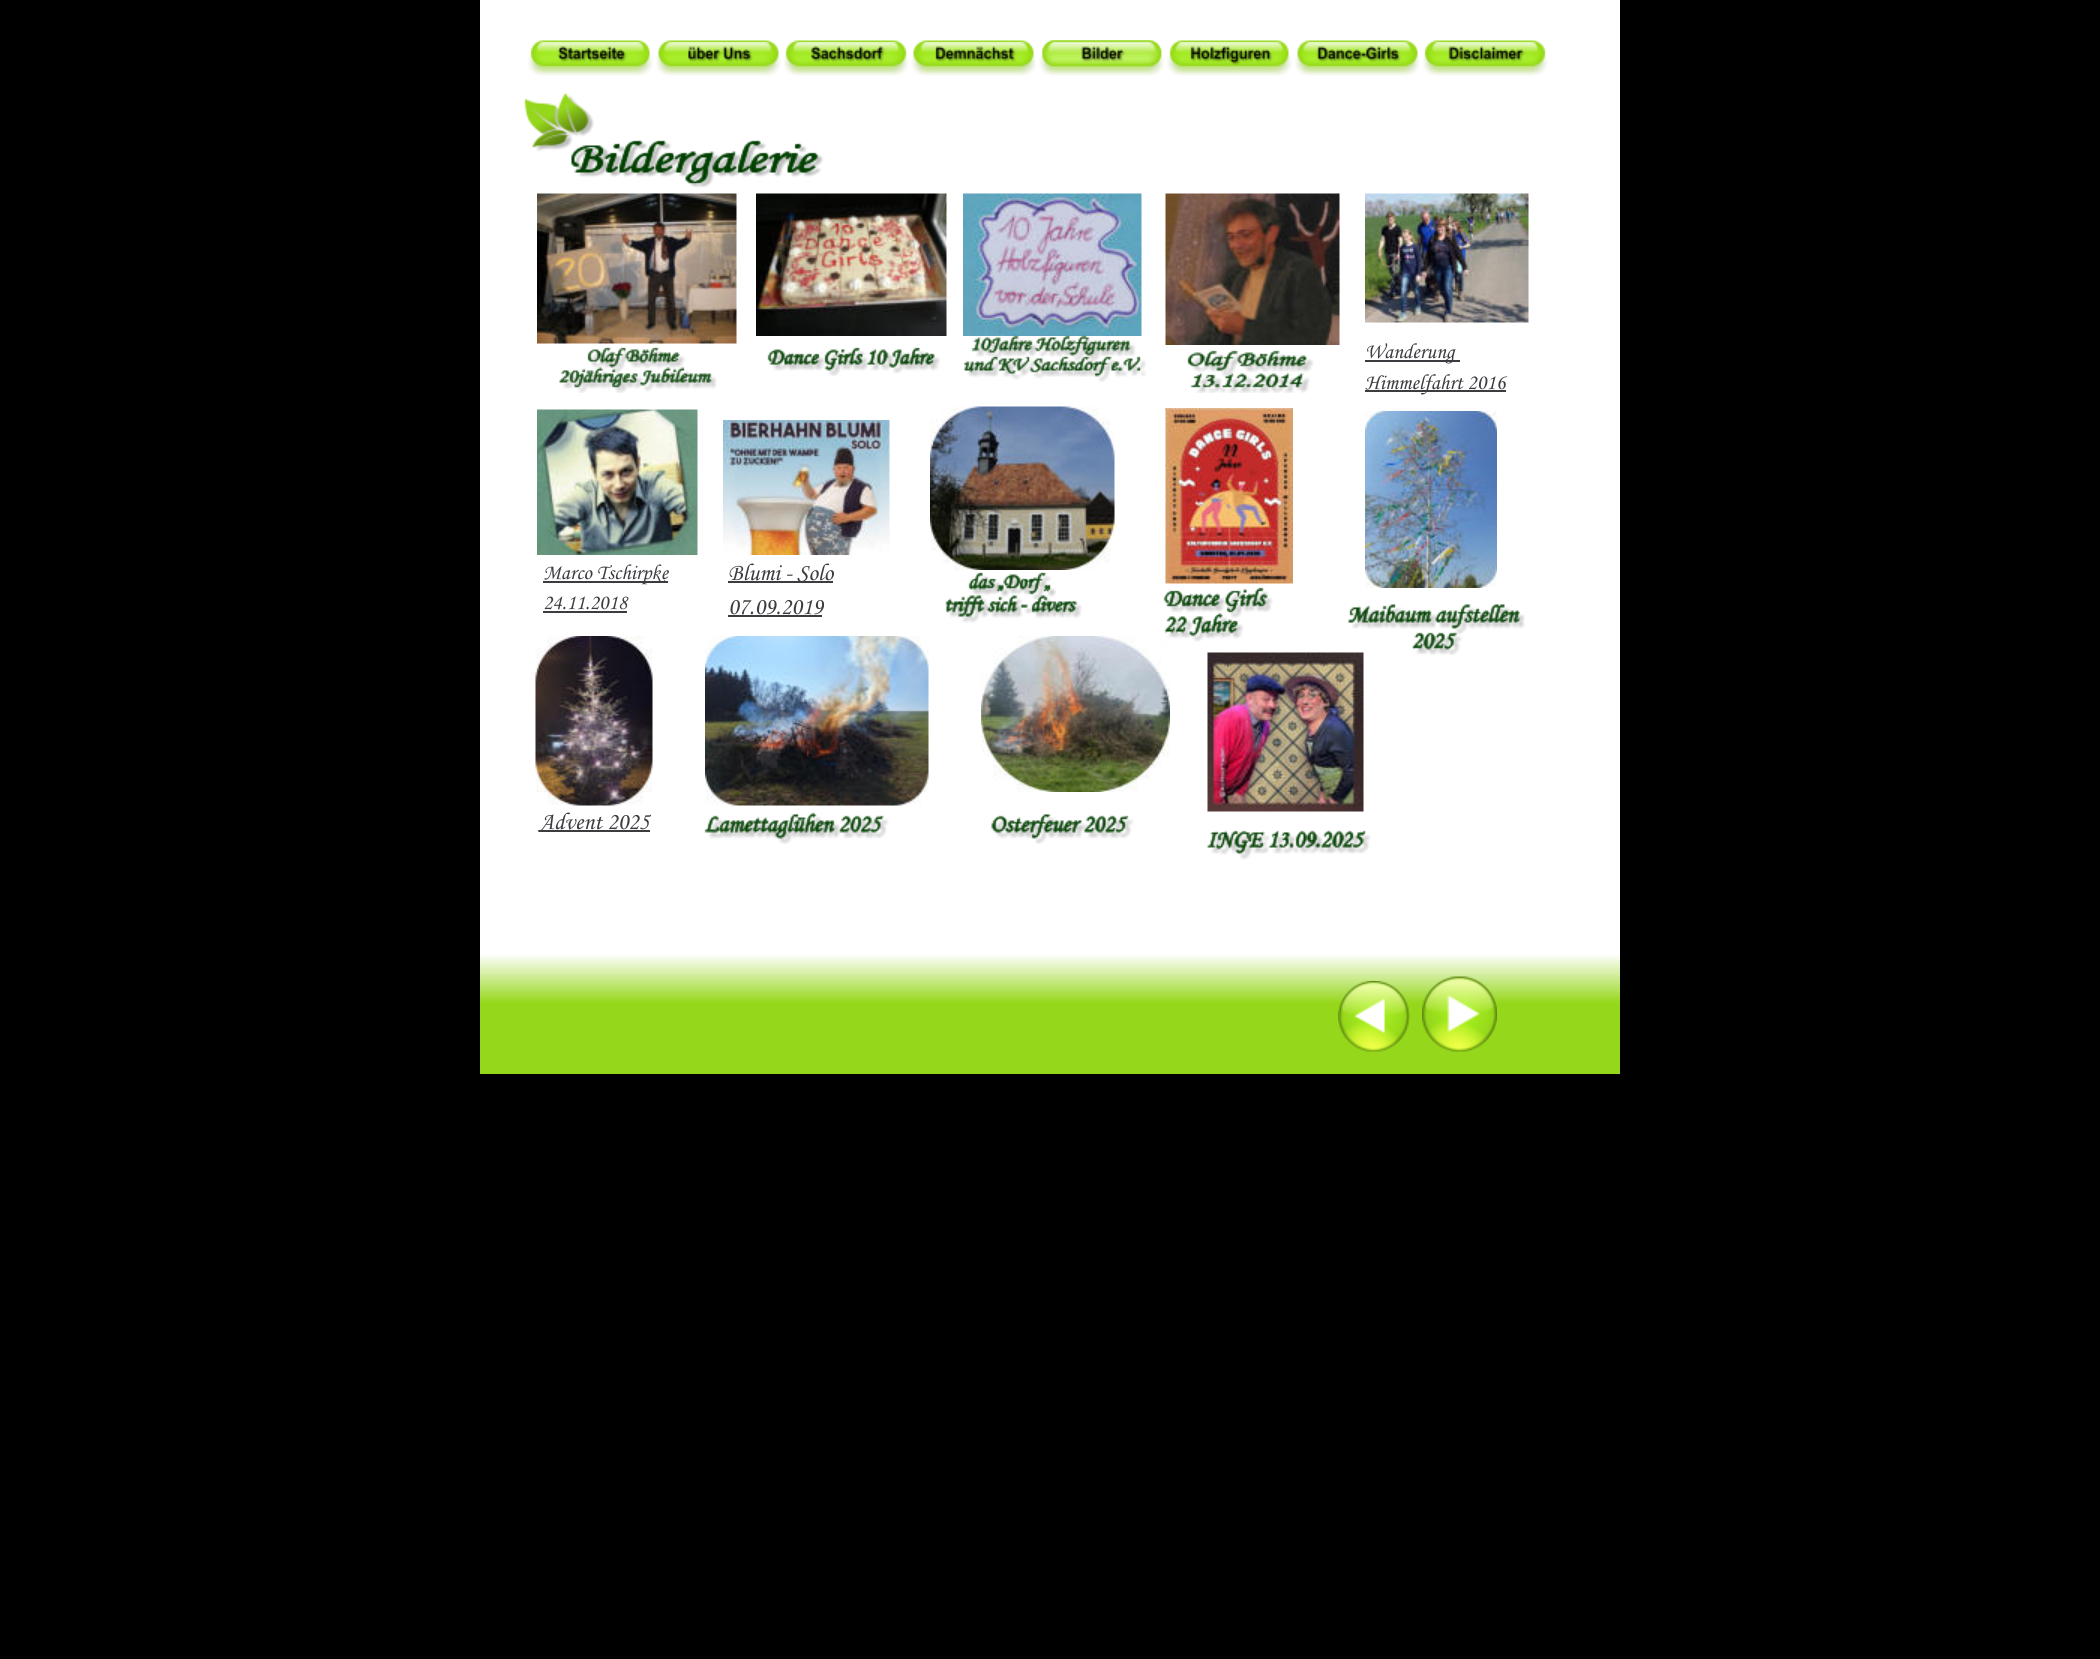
#include <cairo.h>
#include <math.h>
#include <stddef.h>

static cairo_t *c;
static void C(unsigned color){cairo_set_source_rgb(c, (color >> 16) / 255.0, (color >> 8 & 255) / 255.0, (color & 255) / 255.0);}
static void F(const char *family, double size, int italic, int bold){cairo_select_font_face(c, family, italic ? CAIRO_FONT_SLANT_ITALIC : CAIRO_FONT_SLANT_NORMAL,bold ? CAIRO_FONT_WEIGHT_BOLD : CAIRO_FONT_WEIGHT_NORMAL);cairo_set_font_size(c, size);}
static void T(double x, double y, const char *s){cairo_move_to(c, x, y);cairo_show_text(c, s);}
static void R(double x, double y, double w, double h){cairo_rectangle(c, x, y, w, h);cairo_fill(c);}
static void I(const char *path, double x, double y, double w, double h){cairo_surface_t *image = cairo_image_surface_create_from_png(path);cairo_save(c);cairo_set_source_surface(c, image, x, y);cairo_rectangle(c, x, y, w, h);cairo_fill(c);cairo_restore(c);cairo_surface_destroy(image);}
int main(void) {
cairo_surface_t *surface = cairo_image_surface_create(CAIRO_FORMAT_RGB24, 2100, 1659);
c = cairo_create(surface);
cairo_font_options_t *options = cairo_font_options_create();
cairo_font_options_set_hint_metrics(options, CAIRO_HINT_METRICS_OFF);
cairo_font_options_set_hint_style(options, CAIRO_HINT_STYLE_NONE);
cairo_set_font_options(c, options);
cairo_set_miter_limit(c, 4);
C(0x000000);
cairo_paint(c);
C(0xffffff);
R(480,0,1140,1004);
I("1.png",528,40,125,36);
I("2.png",656,40,125,36);
I("3.png",784,40,125,36);
I("4.png",911,40,125,36);
I("5.png",1039,40,125,36);
I("6.png",1042,40,120,27);
I("7.png",1167,40,125,36);
I("8.png",1295,40,125,36);
I("9.png",1423,40,125,36);
I("10.png",524,92,300,96);
I("11.png",537,193,200,151);
I("12.png",756,193,191,143);
I("13.png",963,193,179,143);
I("14.png",1165,193,175,152);
I("15.png",1365,193,164,130);
I("16.png",559,347,158,46);
I("17.png",767,347,173,29);
I("18.png",963,335,183,47);
I("19.png",1187,350,127,43);
C(0x3b3c40);
R(1365,360,95,2);
F("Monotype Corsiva",21.5,1,0);
T(1365,358,"Wanderung");
R(1365,390,141,2);
T(1365,389,"Himmelfahrt 2016");
I("20.png",537,409,161,146);
I("21.png",723,420,167,135);
I("22.png",930,406,185,164);
I("23.png",1165,408,128,176);
I("24.png",1365,411,132,177);
R(543,581,125,2);
F("Monotype Corsiva",21.25,1,0);
T(543,579,"Marco Tschirpke");
T(543,609,"24.11.2018");
R(543,611,84,2);
R(728,581,105,2);
F("Monotype Corsiva",24,1,0);
T(728,580,"Blumi - Solo");
T(728,614,"07.09.2019");
R(728,615,94,2);
I("25.png",945,572,137,51);
I("26.png",1163,587,110,55);
I("27.png",1348,604,177,51);
I("28.png",535,636,118,170);
I("29.png",705,636,224,170);
I("30.png",981,636,189,156);
I("31.png",1207,652,157,160);
R(539,830,111,2);
T(539,829,"Advent 2025");
I("32.png",704,812,185,32);
I("33.png",991,814,143,30);
I("34.png",1207,830,164,30);
I("35.png",480,955,1140,119);
I("36.png",1338,981,72,71);
I("37.png",1422,976,75,76);
cairo_surface_write_to_png(surface, "o.png");
cairo_font_options_destroy(options);
cairo_destroy(c);
cairo_surface_destroy(surface);
return 0;
}
